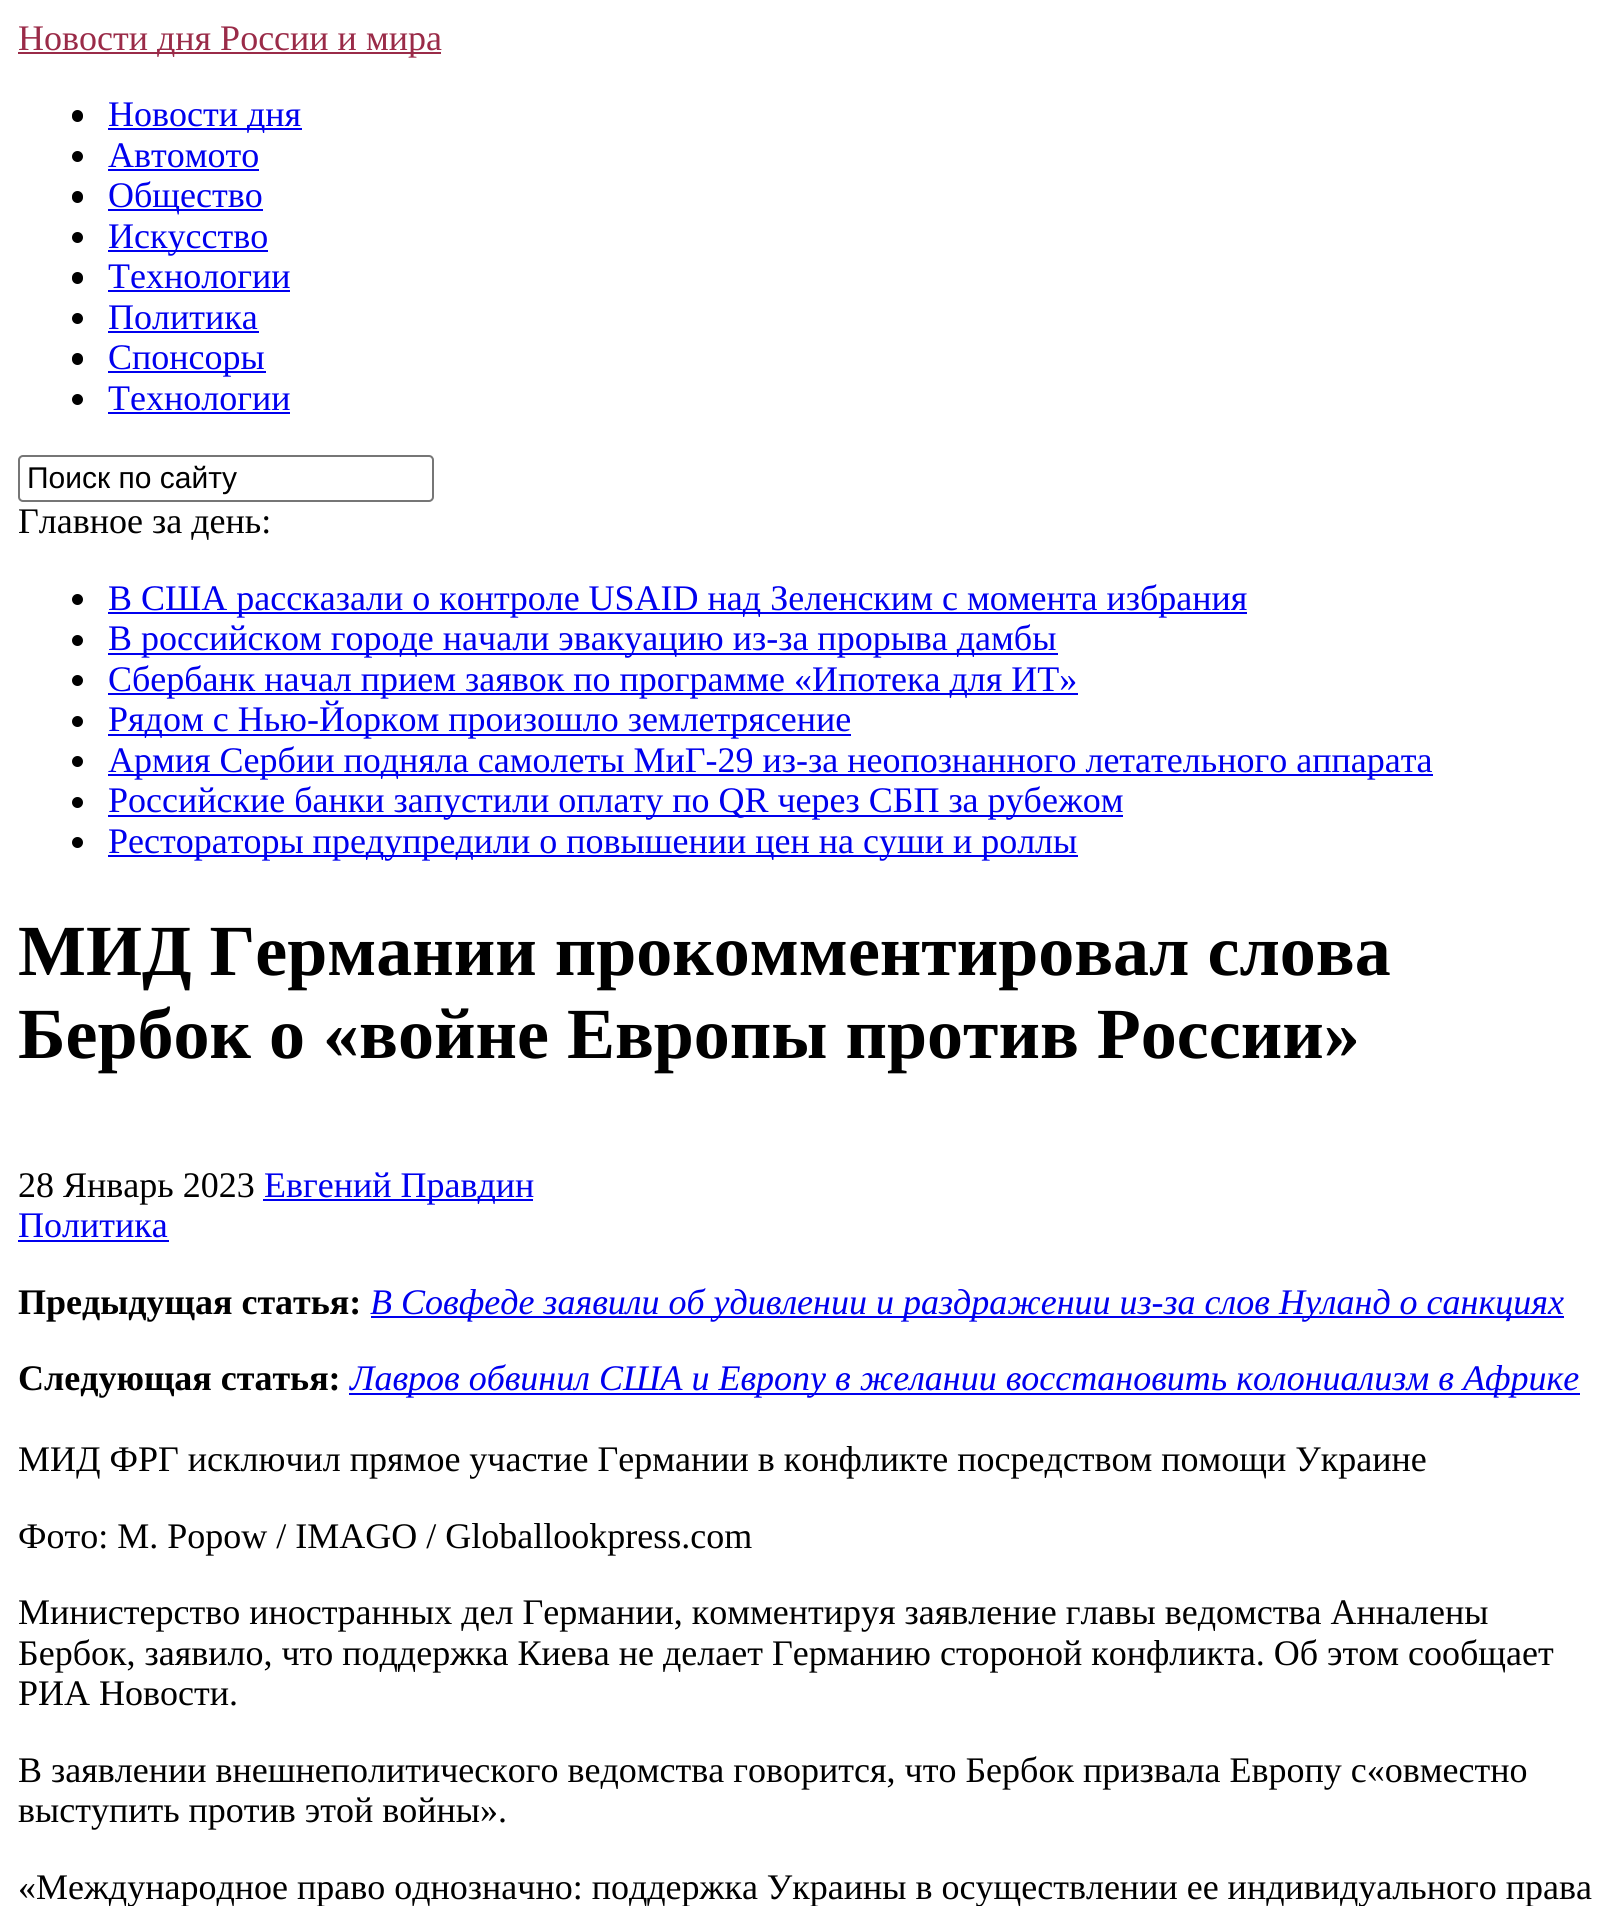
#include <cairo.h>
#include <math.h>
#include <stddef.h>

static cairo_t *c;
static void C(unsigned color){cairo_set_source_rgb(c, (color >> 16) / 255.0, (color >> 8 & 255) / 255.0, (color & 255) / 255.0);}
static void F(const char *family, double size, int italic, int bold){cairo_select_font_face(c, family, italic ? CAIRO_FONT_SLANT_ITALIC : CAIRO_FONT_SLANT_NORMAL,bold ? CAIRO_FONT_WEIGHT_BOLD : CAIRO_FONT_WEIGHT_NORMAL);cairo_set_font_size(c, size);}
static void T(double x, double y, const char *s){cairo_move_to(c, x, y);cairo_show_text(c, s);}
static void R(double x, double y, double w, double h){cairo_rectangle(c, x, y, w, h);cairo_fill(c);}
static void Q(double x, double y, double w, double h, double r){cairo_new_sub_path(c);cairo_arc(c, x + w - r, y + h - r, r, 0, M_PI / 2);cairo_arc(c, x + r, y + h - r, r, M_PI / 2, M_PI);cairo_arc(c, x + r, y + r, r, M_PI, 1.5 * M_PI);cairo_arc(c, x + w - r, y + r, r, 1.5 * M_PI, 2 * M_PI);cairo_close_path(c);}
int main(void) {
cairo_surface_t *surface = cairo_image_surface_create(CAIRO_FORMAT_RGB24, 1616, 1906);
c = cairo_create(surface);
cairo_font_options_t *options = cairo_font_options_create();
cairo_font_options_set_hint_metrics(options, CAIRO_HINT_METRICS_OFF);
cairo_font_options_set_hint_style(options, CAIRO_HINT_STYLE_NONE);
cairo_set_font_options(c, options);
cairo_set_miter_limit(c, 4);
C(0xffffff);
cairo_paint(c);
C(0x9a2b48);
R(18,52,423,2);
F("Liberation Serif",36,0,0);
T(18,50,"Новости дня России и мира");
C(0x000000);
Q(72,110,11,12,5.5);
cairo_fill(c);
C(0x0000ee);
R(108,128,194,2);
T(108,126,"Новости дня");
C(0x000000);
cairo_new_path(c);
cairo_arc(c,77.5,156.5,5.5,0,2 * M_PI);
cairo_fill(c);
C(0x0000ee);
T(108,167,"Автомото");
R(108,169,151,2);
C(0x000000);
Q(72,191,11,12,5.5);
cairo_fill(c);
C(0x0000ee);
R(108,209,155,2);
T(108,207,"Общество");
C(0x000000);
cairo_new_path(c);
cairo_arc(c,77.5,237.5,5.5,0,2 * M_PI);
cairo_fill(c);
C(0x0000ee);
R(108,250,160,2);
T(108,248,"Искусство");
C(0x000000);
Q(72,272,11,12,5.5);
cairo_fill(c);
C(0x0000ee);
T(108,288,"Технологии");
R(108,290,182,2);
C(0x000000);
cairo_new_path(c);
cairo_arc(c,77.5,318.5,5.5,0,2 * M_PI);
cairo_fill(c);
C(0x0000ee);
T(108,329,"Политика");
R(108,331,151,2);
C(0x000000);
Q(72,353,11,12,5.5);
cairo_fill(c);
C(0x0000ee);
R(108,371,158,2);
T(108,369,"Спонсоры");
C(0x000000);
cairo_new_path(c);
cairo_arc(c,77.5,399.5,5.5,0,2 * M_PI);
cairo_fill(c);
C(0x0000ee);
T(108,410,"Технологии");
R(108,412,182,2);
Q(19,456,414,45,4);
C(0x767676);
cairo_stroke(c);
F("Liberation Sans",30,0,0);
C(0x000000);
T(27,488,"Поиск по сайту");
F("Liberation Serif",36,0,0);
T(18,533,"Главное за день:");
cairo_new_path(c);
cairo_arc(c,77.5,599.5,5.5,0,2 * M_PI);
cairo_fill(c);
C(0x0000ee);
R(108,612,1139,2);
T(108,610,"В США рассказали о контроле USAID над Зеленским с момента избрания");
C(0x000000);
cairo_new_path(c);
cairo_arc(c,77.5,640.5,5.5,0,2 * M_PI);
cairo_fill(c);
C(0x0000ee);
R(108,653,950,2);
T(108,650,"В российском городе начали эвакуацию из-за прорыва дамбы");
C(0x000000);
cairo_new_path(c);
cairo_arc(c,77.5,680.5,5.5,0,2 * M_PI);
cairo_fill(c);
C(0x0000ee);
R(108,693,970,2);
T(108,691,"Сбербанк начал прием заявок по программе «Ипотека для ИТ»");
C(0x000000);
cairo_new_path(c);
cairo_arc(c,77.5,721.5,5.5,0,2 * M_PI);
cairo_fill(c);
C(0x0000ee);
R(108,734,743,2);
T(108,731,"Рядом с Нью-Йорком произошло землетрясение");
C(0x000000);
cairo_new_path(c);
cairo_arc(c,77.5,761.5,5.5,0,2 * M_PI);
cairo_fill(c);
C(0x0000ee);
R(108,774,1325,2);
T(108,772,"Армия Сербии подняла самолеты МиГ-29 из-за неопознанного летательного аппарата");
C(0x000000);
cairo_new_path(c);
cairo_arc(c,77.5,802.5,5.5,0,2 * M_PI);
cairo_fill(c);
C(0x0000ee);
R(108,815,1015,2);
T(108,812,"Российские банки запустили оплату по QR через СБП за рубежом");
C(0x000000);
cairo_new_path(c);
cairo_arc(c,77.5,842.5,5.5,0,2 * M_PI);
cairo_fill(c);
C(0x0000ee);
R(108,855,970,2);
T(108,853,"Рестораторы предупредили о повышении цен на суши и роллы");
F("Liberation Serif",72,0,1);
C(0x000000);
T(18,975,"МИД Германии прокомментировал слова");
T(18,1058,"Бербок о «войне Европы против России»");
F("Liberation Serif",36,0,0);
T(18,1197,"28 Январь 2023");
C(0x0000ee);
R(263,1199,270,2);
T(264,1197,"Евгений Правдин");
T(18,1237,"Политика");
R(18,1240,151,2);
F("Liberation Serif",36,0,1);
C(0x000000);
T(18,1314,"Предыдущая статья:");
C(0x0000ee);
R(371,1316,1193,2);
F("Liberation Serif",36,1,0);
T(370,1314,"В Совфеде заявили об удивлении и раздражении из-за слов Нуланд о санкциях");
F("Liberation Serif",36,0,1);
C(0x000000);
T(18,1390,"Следующая статья:");
C(0x0000ee);
R(349,1393,1231,2);
F("Liberation Serif",36,1,0);
T(350,1390,"Лавров обвинил США и Европу в желании восстановить колониализм в Африке");
F("Liberation Serif",36,0,0);
C(0x000000);
T(18,1471,"МИД ФРГ исключил прямое участие Германии в конфликте посредством помощи Украине");
T(18,1548,"Фото: M. Popow / IMAGO / Globallookpress.com");
T(18,1624,"Министерство иностранных дел Германии, комментируя заявление главы ведомства Анналены");
T(18,1665,"Бербок, заявило, что поддержка Киева не делает Германию стороной конфликта. Об этом сообщает");
T(18,1705,"РИА Новости.");
T(18,1782,"В заявлении внешнеполитического ведомства говорится, что Бербок призвала Европу с«овместно");
T(18,1822,"выступить против этой войны».");
T(18,1899,"«Международное право однозначно: поддержка Украины в осуществлении ее индивидуального права");
cairo_surface_write_to_png(surface, "o.png");
cairo_font_options_destroy(options);
cairo_destroy(c);
cairo_surface_destroy(surface);
return 0;
}
